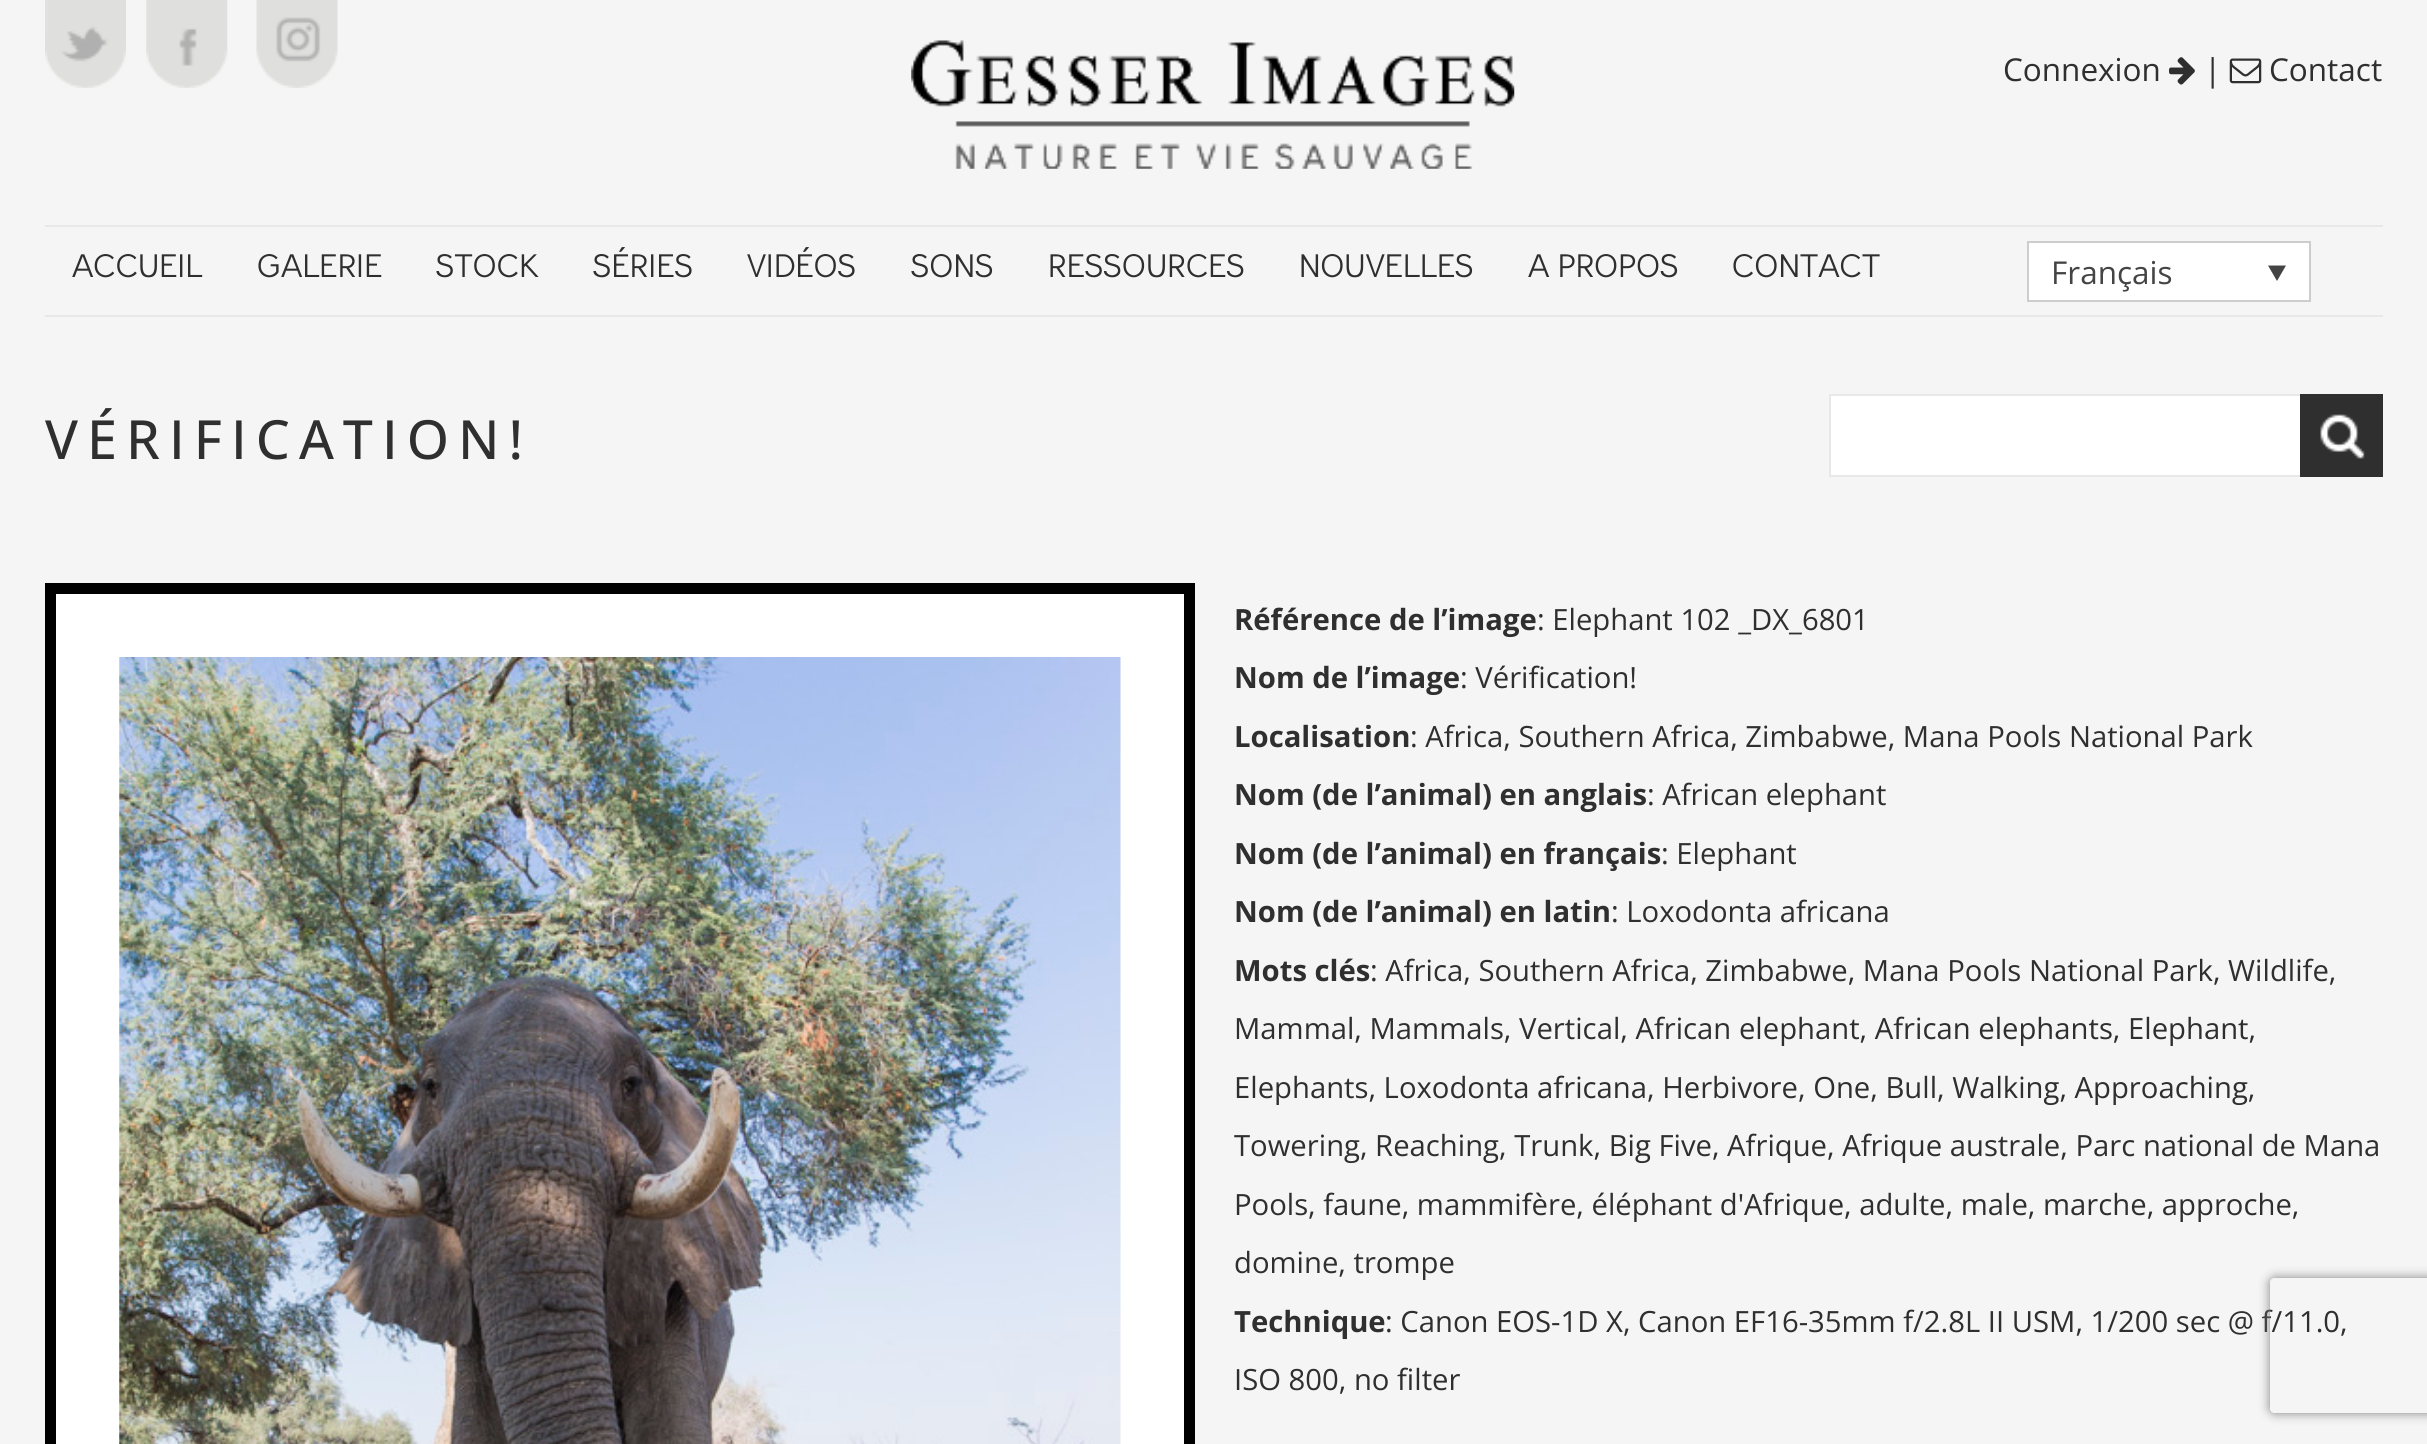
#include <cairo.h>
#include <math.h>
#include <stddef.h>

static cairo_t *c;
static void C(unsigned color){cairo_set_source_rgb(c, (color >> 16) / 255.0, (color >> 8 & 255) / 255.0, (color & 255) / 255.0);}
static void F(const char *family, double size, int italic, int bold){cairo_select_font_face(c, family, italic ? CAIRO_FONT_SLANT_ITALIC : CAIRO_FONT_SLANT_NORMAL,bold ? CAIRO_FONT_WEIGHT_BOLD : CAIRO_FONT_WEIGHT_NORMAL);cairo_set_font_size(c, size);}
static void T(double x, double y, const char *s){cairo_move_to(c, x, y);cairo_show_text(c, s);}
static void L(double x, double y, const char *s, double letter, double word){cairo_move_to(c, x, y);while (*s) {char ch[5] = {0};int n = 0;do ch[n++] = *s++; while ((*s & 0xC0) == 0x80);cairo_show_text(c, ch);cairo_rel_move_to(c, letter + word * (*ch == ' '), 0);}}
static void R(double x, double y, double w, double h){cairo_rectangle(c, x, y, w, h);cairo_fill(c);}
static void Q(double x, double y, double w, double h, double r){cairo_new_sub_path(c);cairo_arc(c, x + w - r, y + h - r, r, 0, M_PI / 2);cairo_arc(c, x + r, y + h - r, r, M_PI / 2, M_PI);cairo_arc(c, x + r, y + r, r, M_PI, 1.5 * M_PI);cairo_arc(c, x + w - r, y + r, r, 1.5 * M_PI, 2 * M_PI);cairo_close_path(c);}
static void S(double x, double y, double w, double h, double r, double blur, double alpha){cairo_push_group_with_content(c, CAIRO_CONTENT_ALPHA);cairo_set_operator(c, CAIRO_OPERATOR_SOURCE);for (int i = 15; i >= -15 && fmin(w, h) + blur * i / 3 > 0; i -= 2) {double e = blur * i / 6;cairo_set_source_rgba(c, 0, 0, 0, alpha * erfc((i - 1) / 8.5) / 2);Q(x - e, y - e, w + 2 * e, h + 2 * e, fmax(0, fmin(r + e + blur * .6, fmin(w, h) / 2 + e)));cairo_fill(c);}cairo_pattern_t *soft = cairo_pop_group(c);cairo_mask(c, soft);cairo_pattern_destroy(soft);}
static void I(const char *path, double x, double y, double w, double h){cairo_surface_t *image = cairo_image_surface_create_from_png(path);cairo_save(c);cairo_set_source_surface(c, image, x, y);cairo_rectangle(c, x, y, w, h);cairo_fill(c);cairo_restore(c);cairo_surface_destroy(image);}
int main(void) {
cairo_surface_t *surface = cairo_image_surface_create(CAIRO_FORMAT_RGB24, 2427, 1444);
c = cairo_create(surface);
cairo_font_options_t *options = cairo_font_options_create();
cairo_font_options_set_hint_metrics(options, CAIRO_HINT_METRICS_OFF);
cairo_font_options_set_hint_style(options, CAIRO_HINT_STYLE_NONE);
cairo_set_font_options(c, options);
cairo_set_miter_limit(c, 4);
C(0xf5f5f5);
cairo_paint(c);
I("1.png",45,0,81,88);
I("2.png",146,0,82,88);
I("3.png",256,0,82,88);
I("4.png",911,40,604,129);
F("Open Sans",31.5,0,0);
C(0x2f2f2f);
T(2003,81,"Connexion");
I("5.png",2169,57,26,28);
T(2204,81,"|");
I("6.png",2229,58,33,26);
T(2269,81,"Contact");
C(0xe8e8e8);
R(45,225,2338,2);
R(45,315,2338,2);
F("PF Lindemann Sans",31.5,0,0);
C(0x2f2f2f);
T(72,277,"ACCUEIL");
T(257,277,"GALERIE");
T(436,277,"STOCK");
T(593,277,"SÉRIES");
T(747,277,"VIDÉOS");
T(911,277,"SONS");
T(1048,277,"RESSOURCES");
T(1299,277,"NOUVELLES");
T(1528,277,"A PROPOS");
T(1732,277,"CONTACT");
C(0xffffff);
cairo_rectangle(c,2028,242,282,59);
cairo_fill_preserve(c);
C(0xcdcdcd);
cairo_stroke(c);
F("Open Sans",31.5,0,0);
C(0x444444);
T(2051,284,"Français");
cairo_new_path(c);
cairo_move_to(c,2268,265.5);
cairo_line_to(c,2286,265.5);
cairo_line_to(c,2277,281);
cairo_close_path(c);
cairo_fill(c);
F("Open Sans Medium",54,0,0);
C(0x2f2f2f);
L(45,459,"VÉRIFICATION!",9,0);
C(0xffffff);
R(1831,396,469,79);
cairo_rectangle(c,1830,395,552,81);
C(0xe8e8e8);
cairo_stroke(c);
C(0x2f2f2f);
R(2300,394,83,83);
I("7.png",2320,414,45,45);
C(0xffffff);
cairo_rectangle(c,50.5,588.5,1139,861);
cairo_fill_preserve(c);
C(0x000000);
cairo_set_line_width(c,11);
cairo_stroke(c);
I("8.png",119,657,1002,787);
F("Open Sans",29.25,0,1);
C(0x2f2f2f);
T(1234,630,"Référence de l’image");
F("Open Sans",29.25,0,0);
T(1537,630,": Elephant 102 _DX_6801");
F("Open Sans",29.25,0,1);
T(1234,688,"Nom de l’image");
F("Open Sans",29.25,0,0);
T(1460,688,": Vérification!");
F("Open Sans",29.25,0,1);
T(1234,747,"Localisation");
F("Open Sans",29.25,0,0);
T(1410,747,": Africa, Southern Africa, Zimbabwe, Mana Pools National Park");
F("Open Sans",29.25,0,1);
T(1234,805,"Nom (de l’animal) en anglais");
F("Open Sans",29.25,0,0);
T(1647,805,": African elephant");
F("Open Sans",29.25,0,1);
T(1234,864,"Nom (de l’animal) en français");
F("Open Sans",29.25,0,0);
T(1661,864,": Elephant");
F("Open Sans",29.25,0,1);
T(1234,922,"Nom (de l’animal) en latin");
F("Open Sans",29.25,0,0);
T(1611,922,": Loxodonta africana");
F("Open Sans",29.25,0,1);
T(1234,981,"Mots clés");
F("Open Sans",29.25,0,0);
T(1370,981,": Africa, Southern Africa, Zimbabwe, Mana Pools National Park, Wildlife,");
T(1234,1039,"Mammal, Mammals, Vertical, African elephant, African elephants, Elephant,");
T(1234,1098,"Elephants, Loxodonta africana, Herbivore, One, Bull, Walking, Approaching,");
T(1234,1156,"Towering, Reaching, Trunk, Big Five, Afrique, Afrique australe, Parc national de Mana");
T(1234,1215,"Pools, faune, mammifère, éléphant d'Afrique, adulte, male, marche, approche,");
T(1234,1273,"domine, trompe");
F("Open Sans",29.25,0,1);
T(1234,1332,"Technique");
F("Open Sans",29.25,0,0);
T(1385,1332,": Canon EOS-1D X, Canon EF16-35mm f/2.8L II USM, 1/200 sec @ f/11.0,");
T(1234,1390,"ISO 800, no filter");
cairo_save(c);
cairo_set_fill_rule(c,CAIRO_FILL_RULE_EVEN_ODD);
cairo_new_path(c);
cairo_move_to(c,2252,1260);
cairo_line_to(c,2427,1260);
cairo_line_to(c,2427,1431);
cairo_line_to(c,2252,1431);
cairo_close_path(c);
cairo_move_to(c,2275,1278);
cairo_line_to(c,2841,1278);
cairo_curve_to(c,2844,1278,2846,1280,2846,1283);
cairo_line_to(c,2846,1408);
cairo_curve_to(c,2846,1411,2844,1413,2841,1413);
cairo_line_to(c,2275,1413);
cairo_curve_to(c,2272,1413,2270,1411,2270,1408);
cairo_line_to(c,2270,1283);
cairo_curve_to(c,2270,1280,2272,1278,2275,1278);
cairo_close_path(c);
cairo_clip(c);
C(0x808080);
S(2270,1278,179,135,5,5.5,1);
cairo_restore(c);
cairo_surface_write_to_png(surface, "o.png");
cairo_font_options_destroy(options);
cairo_destroy(c);
cairo_surface_destroy(surface);
return 0;
}
